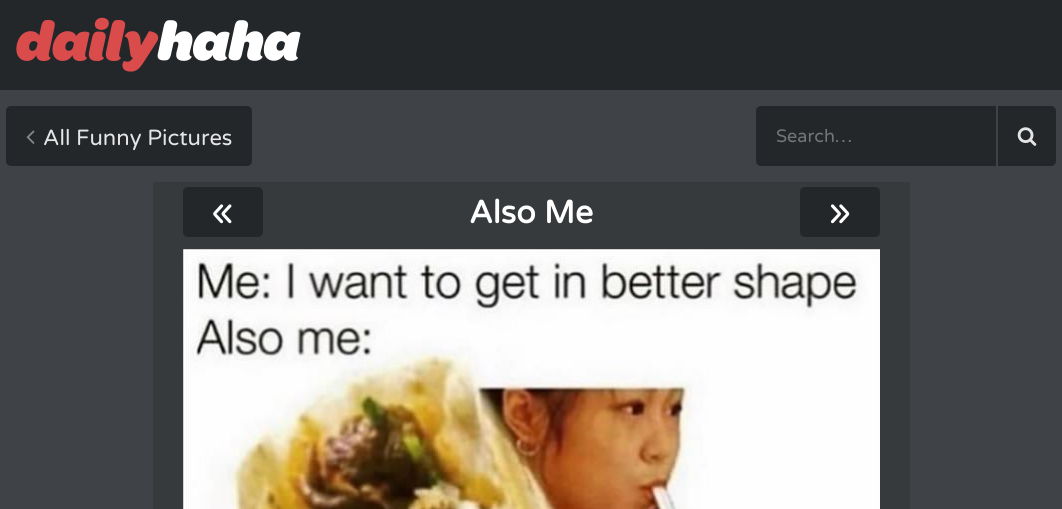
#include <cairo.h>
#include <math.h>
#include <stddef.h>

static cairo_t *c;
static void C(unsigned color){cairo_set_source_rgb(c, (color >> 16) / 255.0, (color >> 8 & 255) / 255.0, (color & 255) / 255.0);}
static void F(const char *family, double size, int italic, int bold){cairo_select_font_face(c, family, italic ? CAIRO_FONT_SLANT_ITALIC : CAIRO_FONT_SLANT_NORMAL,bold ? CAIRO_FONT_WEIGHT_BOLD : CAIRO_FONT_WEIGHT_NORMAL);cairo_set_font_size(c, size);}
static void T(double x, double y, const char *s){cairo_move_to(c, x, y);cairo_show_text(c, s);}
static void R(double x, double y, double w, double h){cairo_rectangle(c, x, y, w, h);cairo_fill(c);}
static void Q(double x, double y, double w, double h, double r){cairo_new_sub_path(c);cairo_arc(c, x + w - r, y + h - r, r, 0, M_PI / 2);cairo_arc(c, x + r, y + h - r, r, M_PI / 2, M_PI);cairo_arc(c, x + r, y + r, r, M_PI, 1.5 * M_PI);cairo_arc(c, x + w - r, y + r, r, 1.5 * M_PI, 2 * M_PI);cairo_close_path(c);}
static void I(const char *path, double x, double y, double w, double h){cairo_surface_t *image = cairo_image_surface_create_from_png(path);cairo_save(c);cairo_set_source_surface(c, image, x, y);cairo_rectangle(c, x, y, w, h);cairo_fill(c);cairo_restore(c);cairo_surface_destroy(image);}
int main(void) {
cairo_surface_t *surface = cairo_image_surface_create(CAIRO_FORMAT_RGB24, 1062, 509);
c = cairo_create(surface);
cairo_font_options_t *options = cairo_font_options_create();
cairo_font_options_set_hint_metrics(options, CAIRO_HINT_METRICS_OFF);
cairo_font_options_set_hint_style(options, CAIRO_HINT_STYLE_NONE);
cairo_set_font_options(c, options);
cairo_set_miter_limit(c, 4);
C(0x3f4246);
cairo_paint(c);
C(0x24272a);
R(0,0,1062,90);
I("1.png",16,17,285,55);
Q(6,106,246,60,5);
cairo_fill(c);
I("2.png",26,130,9,14);
F("Varela Round",22,0,0);
C(0xe5e5e5);
T(43,145,"All Funny Pictures");
C(0x24272a);
Q(756,106,300,60,5);
cairo_fill(c);
F("Varela Round",18,0,0);
C(0x757575);
T(776,142,"Search…");
C(0x3f4246);
R(996,106,2,60);
I("3.png",1017,127,20,19);
C(0x363a3d);
R(153,182,757,327);
C(0x24272a);
Q(183,187,80,50,5);
cairo_fill(c);
F("Varela Round",40,0,0);
C(0xffffff);
T(211,224,"«");
F("Varela Round",32,0,1);
T(469,223,"Also Me");
C(0x24272a);
Q(800,187,80,50,5);
cairo_fill(c);
F("Varela Round",40,0,0);
C(0xffffff);
T(828,224,"»");
I("4.png",183,249,697,260);
cairo_surface_write_to_png(surface, "o.png");
cairo_font_options_destroy(options);
cairo_destroy(c);
cairo_surface_destroy(surface);
return 0;
}
